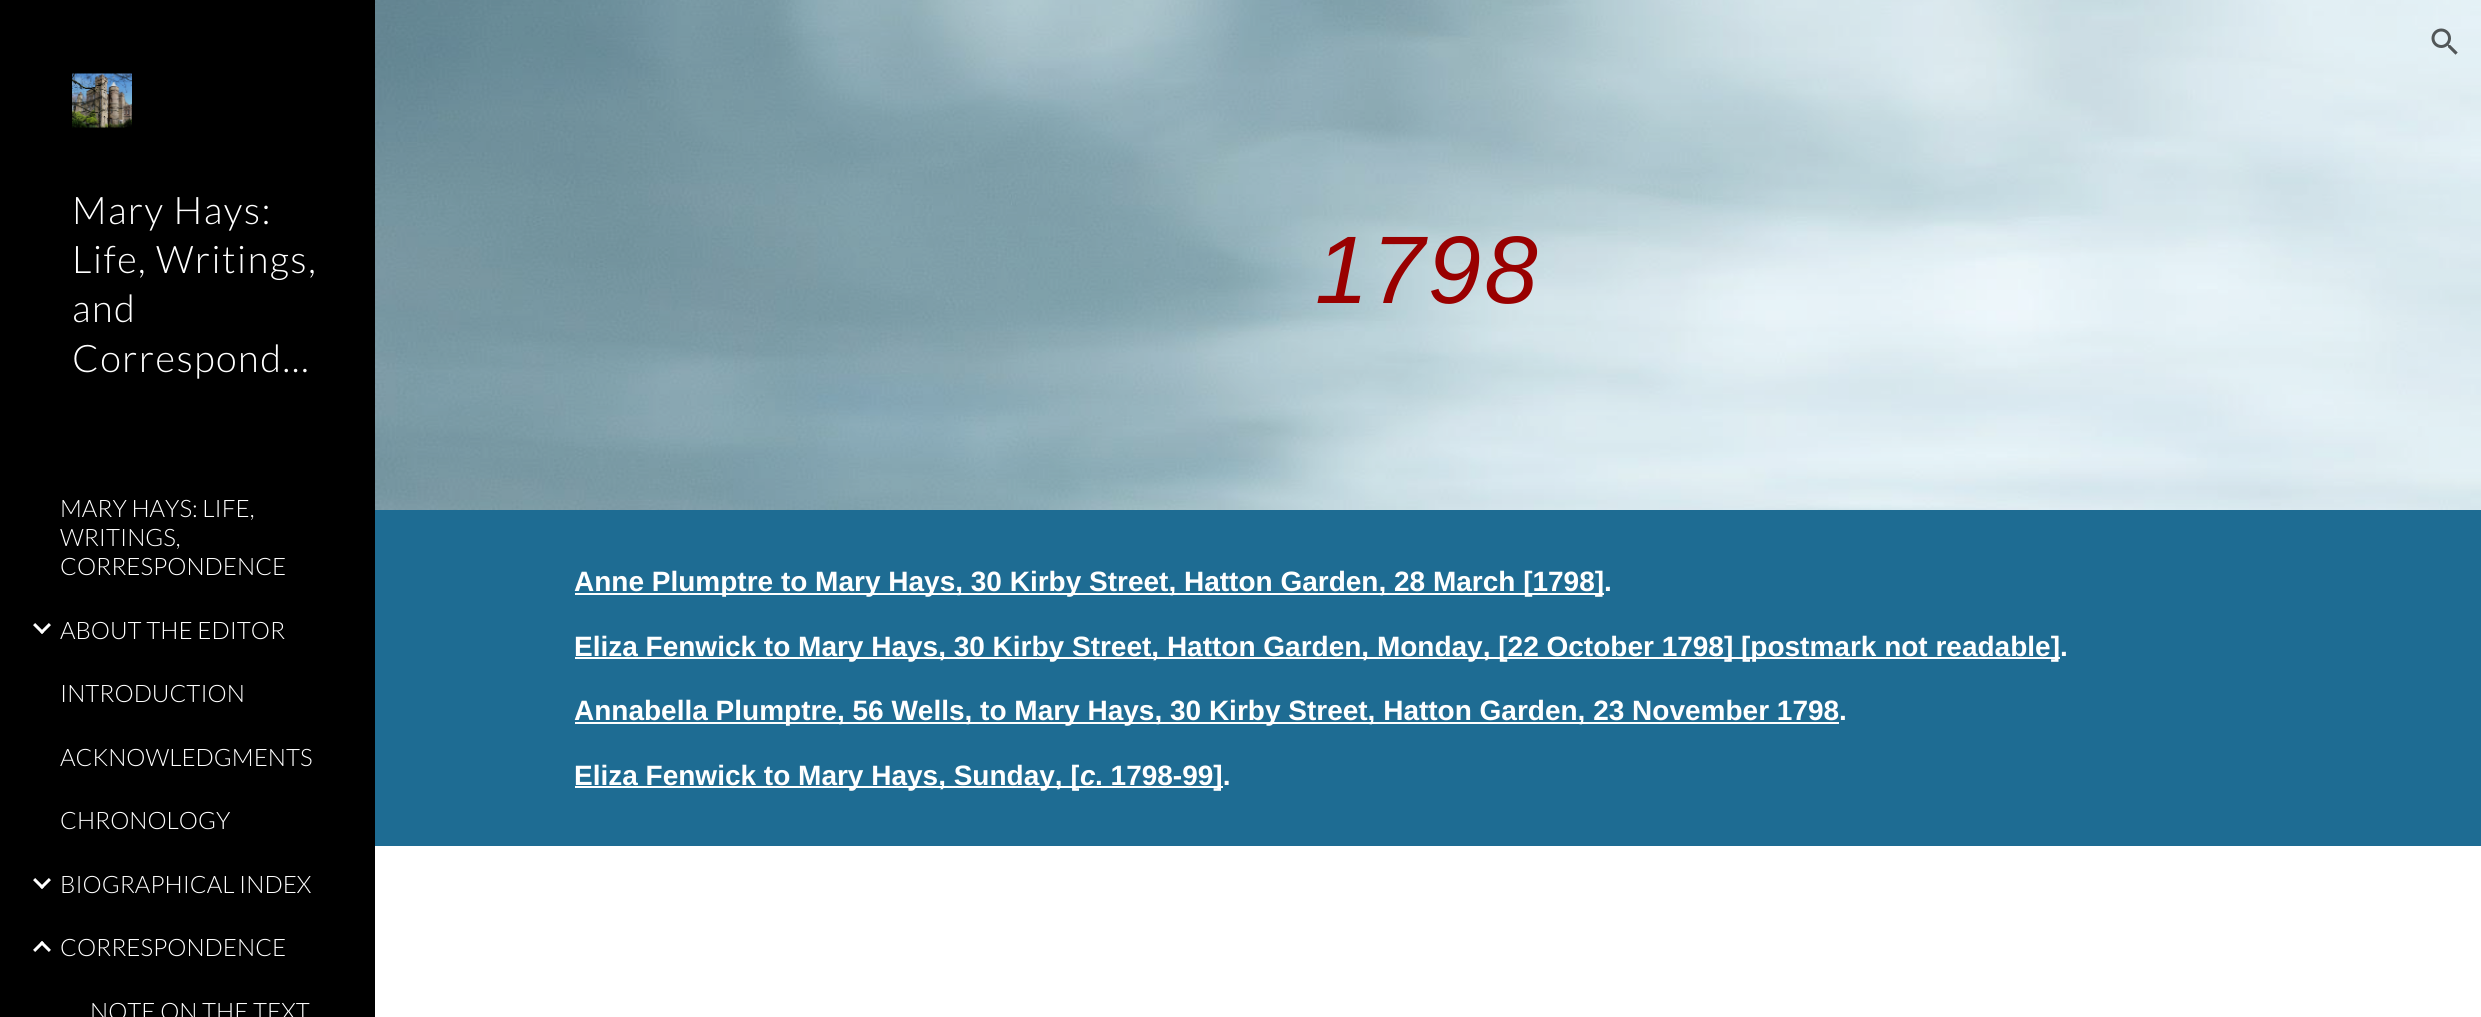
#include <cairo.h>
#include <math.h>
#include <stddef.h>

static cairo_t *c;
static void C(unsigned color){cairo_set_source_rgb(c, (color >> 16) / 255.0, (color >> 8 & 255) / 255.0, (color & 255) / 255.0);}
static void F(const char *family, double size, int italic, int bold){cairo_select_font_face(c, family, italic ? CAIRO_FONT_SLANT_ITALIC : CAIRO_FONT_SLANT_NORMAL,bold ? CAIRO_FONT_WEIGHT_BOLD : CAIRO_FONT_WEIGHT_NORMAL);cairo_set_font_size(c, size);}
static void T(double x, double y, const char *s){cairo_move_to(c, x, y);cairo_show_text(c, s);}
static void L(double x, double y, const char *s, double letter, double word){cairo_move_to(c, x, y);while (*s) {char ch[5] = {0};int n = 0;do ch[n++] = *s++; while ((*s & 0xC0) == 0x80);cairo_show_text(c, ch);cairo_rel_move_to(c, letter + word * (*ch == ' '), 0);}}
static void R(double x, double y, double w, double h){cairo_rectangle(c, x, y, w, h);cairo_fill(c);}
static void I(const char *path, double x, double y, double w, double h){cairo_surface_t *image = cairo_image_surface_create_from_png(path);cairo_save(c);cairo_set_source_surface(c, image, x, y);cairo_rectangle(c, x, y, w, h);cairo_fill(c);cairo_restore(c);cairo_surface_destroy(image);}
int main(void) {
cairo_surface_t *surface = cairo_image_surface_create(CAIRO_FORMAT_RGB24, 2481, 1017);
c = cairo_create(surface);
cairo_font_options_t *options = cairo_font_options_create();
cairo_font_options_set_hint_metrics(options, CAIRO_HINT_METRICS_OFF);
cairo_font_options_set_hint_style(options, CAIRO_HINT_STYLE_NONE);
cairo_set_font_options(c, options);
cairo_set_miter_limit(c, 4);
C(0xffffff);
cairo_paint(c);
I("5.png",375,0,2106,510);
I("1.png",2431,28,27,27);
C(0x000000);
R(0,0,375,1017);
I("2.png",72,73,60,55);
F("Lato Light",38,0,0);
C(0xffffff);
L(72,224,"Mary Hays:",1.5,0);
L(72,273,"Life, Writings,",1.5,0);
L(72,322,"and",1.5,0);
L(72,372,"Correspond…",1.5,0);
F("Lato Light",24,0,0);
T(60,517,"MARY HAYS: LIFE,");
T(60,546,"WRITINGS,");
T(60,575,"CORRESPONDENCE");
I("3.png",33,623,18,11);
T(60,639,"ABOUT THE EDITOR");
T(60,702,"INTRODUCTION");
T(60,766,"ACKNOWLEDGMENTS");
T(60,829,"CHRONOLOGY");
I("3.png",33,878,18,11);
T(60,893,"BIOGRAPHICAL INDEX");
I("4.png",33,941,18,11);
T(60,956,"CORRESPONDENCE");
T(90,1020,"NOTE ON THE TEXT");
F("Liberation Sans",96,1,0);
C(0x990000);
L(1315,303,"1798",3,0);
C(0x1e6c93);
R(375,510,2106,336);
C(0xffffff);
R(575,593,1029,2);
F("Liberation Sans",28,0,1);
T(574,591,"Anne Plumptre to Mary Hays, 30 Kirby Street, Hatton Garden, 28 March [1798].");
R(575,657,1485,2);
T(574,656,"Eliza Fenwick to Mary Hays, 30 Kirby Street, Hatton Garden, Monday, [22 October 1798] [postmark not readable].");
R(575,722,1264,2);
T(574,720,"Annabella Plumptre, 56 Wells, to Mary Hays, 30 Kirby Street, Hatton Garden, 23 November 1798.");
R(575,786,648,2);
T(574,785,"Eliza Fenwick to Mary Hays, Sunday, [");
F("Liberation Sans",28,1,1);
T(1080,785,"c");
F("Liberation Sans",28,0,1);
T(1095,785,". 1798-99].");
cairo_surface_write_to_png(surface, "o.png");
cairo_font_options_destroy(options);
cairo_destroy(c);
cairo_surface_destroy(surface);
return 0;
}
